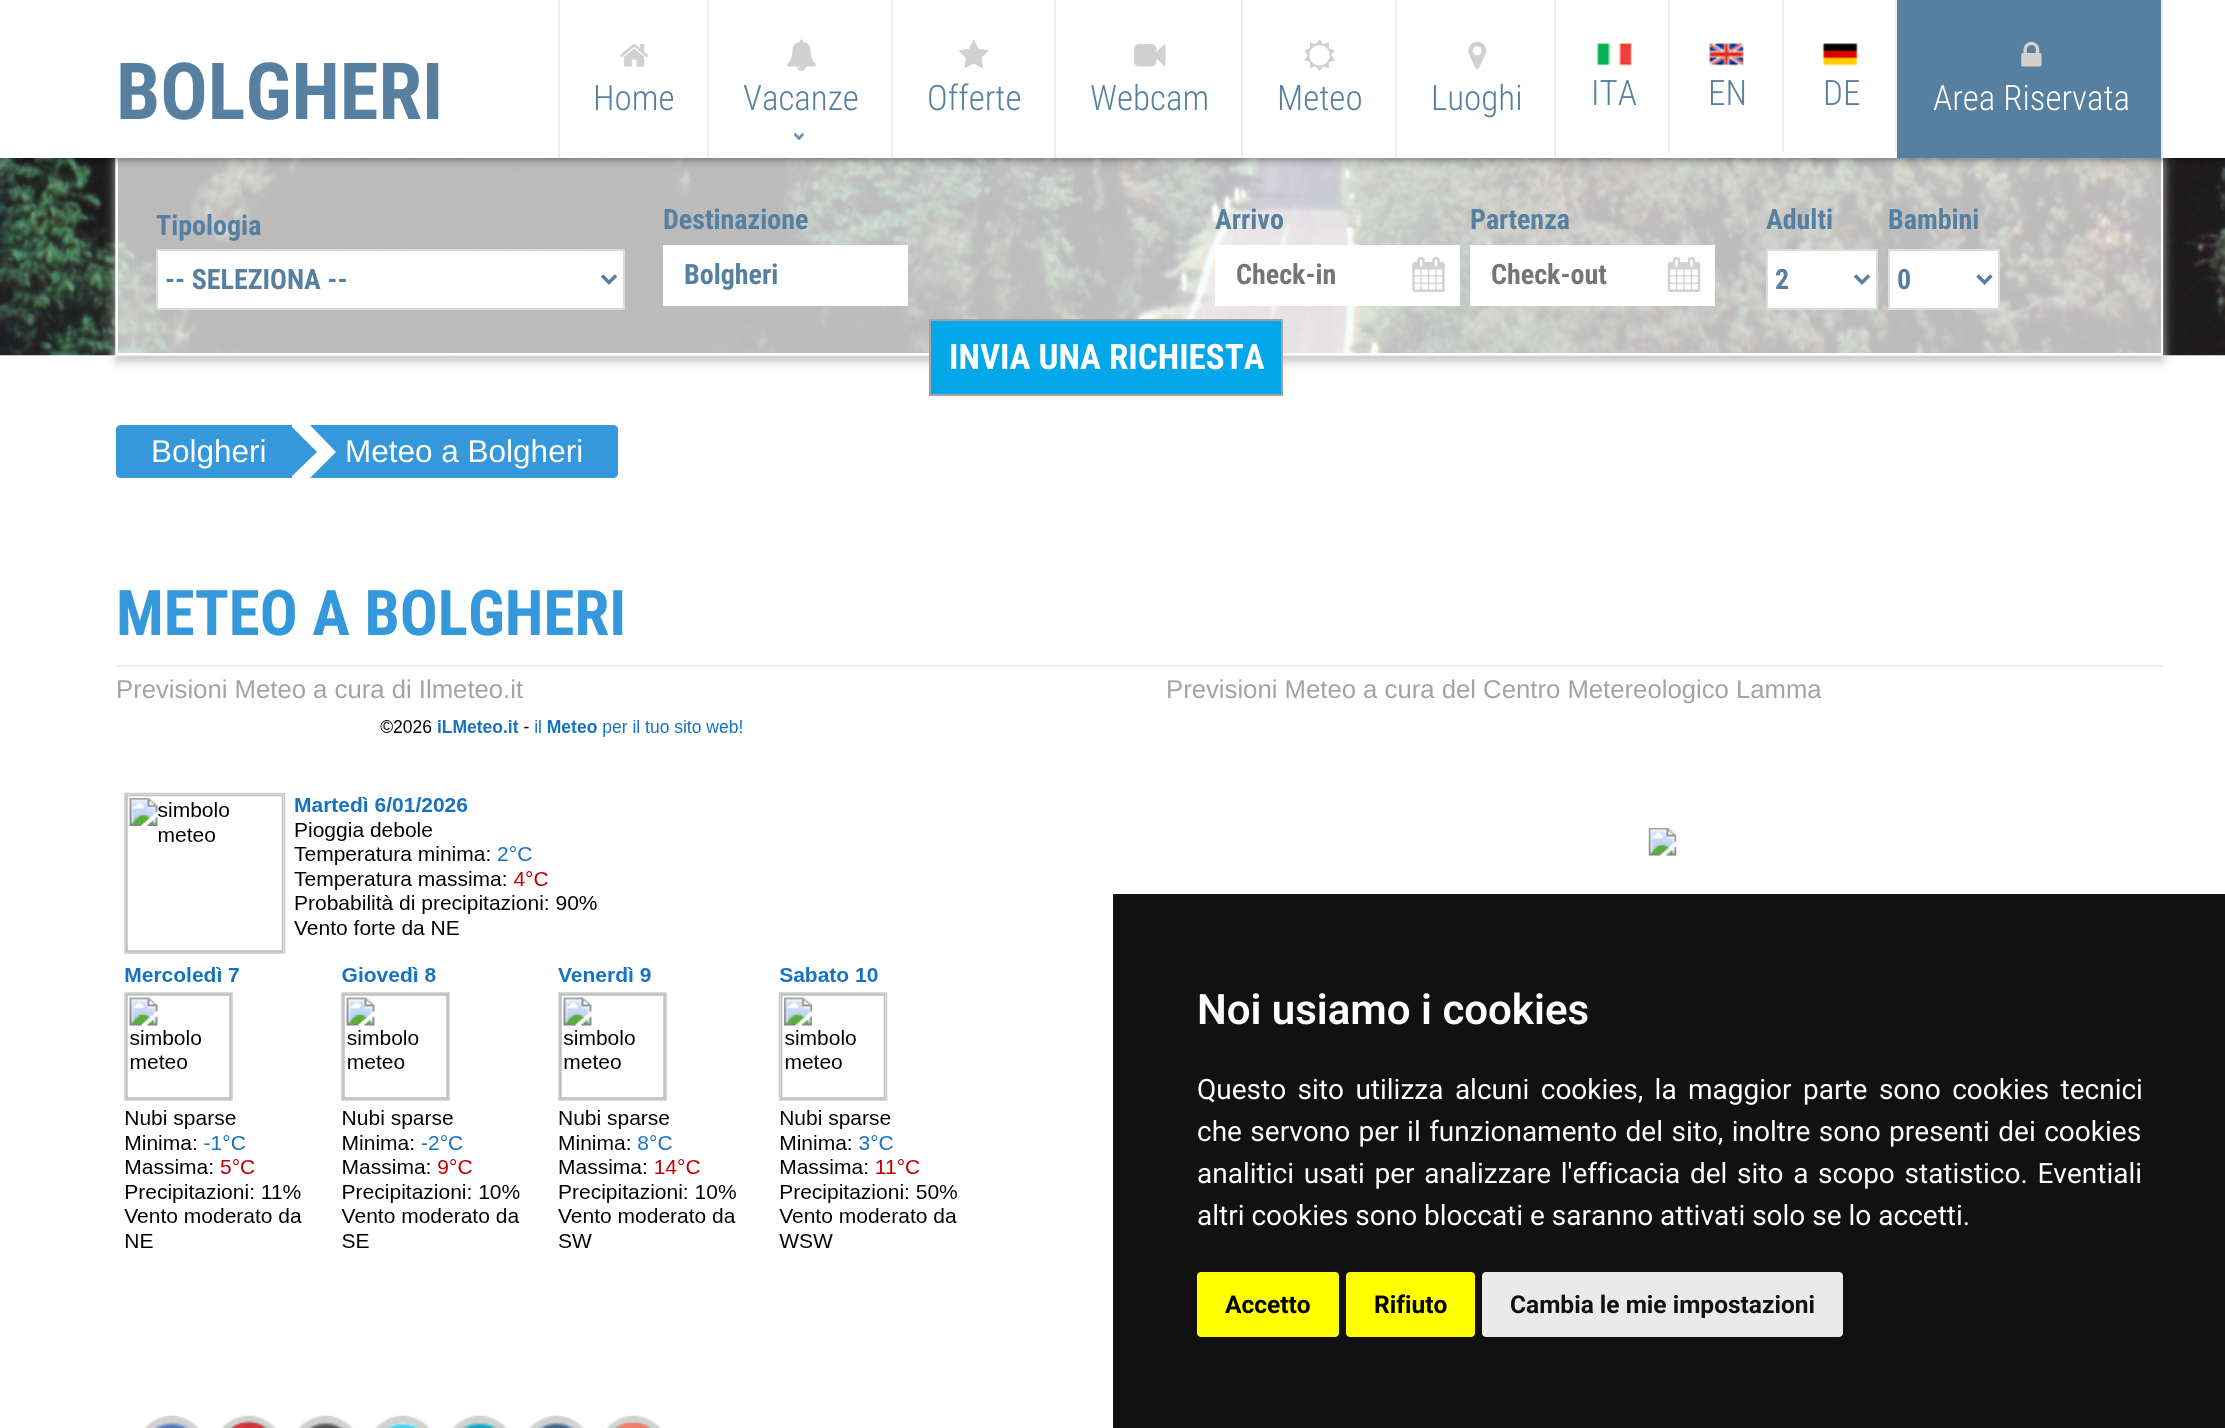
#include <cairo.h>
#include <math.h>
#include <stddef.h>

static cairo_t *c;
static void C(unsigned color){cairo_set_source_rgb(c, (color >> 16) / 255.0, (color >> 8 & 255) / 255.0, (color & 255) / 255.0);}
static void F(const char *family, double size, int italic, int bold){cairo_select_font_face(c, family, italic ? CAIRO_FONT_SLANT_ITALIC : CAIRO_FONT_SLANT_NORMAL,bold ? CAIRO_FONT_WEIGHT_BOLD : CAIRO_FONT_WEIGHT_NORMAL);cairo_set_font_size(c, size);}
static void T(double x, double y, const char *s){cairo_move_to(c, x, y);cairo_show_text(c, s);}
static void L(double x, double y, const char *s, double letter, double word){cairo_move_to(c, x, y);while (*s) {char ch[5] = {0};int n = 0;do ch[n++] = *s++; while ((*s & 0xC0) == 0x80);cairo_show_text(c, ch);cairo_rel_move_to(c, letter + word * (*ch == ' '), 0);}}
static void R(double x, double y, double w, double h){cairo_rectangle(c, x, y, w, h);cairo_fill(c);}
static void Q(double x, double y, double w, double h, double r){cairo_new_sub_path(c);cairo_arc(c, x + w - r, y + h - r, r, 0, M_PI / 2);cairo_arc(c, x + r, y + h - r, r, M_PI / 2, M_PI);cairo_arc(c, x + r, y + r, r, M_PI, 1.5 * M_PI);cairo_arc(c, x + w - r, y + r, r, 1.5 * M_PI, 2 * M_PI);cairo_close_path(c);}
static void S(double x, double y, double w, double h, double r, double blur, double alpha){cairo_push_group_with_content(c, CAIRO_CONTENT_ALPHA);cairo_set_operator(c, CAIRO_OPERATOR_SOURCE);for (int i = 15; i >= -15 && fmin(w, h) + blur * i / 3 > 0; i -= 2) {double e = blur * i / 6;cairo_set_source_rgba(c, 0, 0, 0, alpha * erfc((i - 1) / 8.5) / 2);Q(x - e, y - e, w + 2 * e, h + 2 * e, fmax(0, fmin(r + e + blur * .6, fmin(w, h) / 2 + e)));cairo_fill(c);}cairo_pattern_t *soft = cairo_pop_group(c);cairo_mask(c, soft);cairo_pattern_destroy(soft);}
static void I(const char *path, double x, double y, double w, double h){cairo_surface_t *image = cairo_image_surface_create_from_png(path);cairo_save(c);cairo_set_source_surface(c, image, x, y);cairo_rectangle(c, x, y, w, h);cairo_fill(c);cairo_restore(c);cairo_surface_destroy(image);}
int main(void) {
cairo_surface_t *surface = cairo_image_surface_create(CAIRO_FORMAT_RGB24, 2225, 1428);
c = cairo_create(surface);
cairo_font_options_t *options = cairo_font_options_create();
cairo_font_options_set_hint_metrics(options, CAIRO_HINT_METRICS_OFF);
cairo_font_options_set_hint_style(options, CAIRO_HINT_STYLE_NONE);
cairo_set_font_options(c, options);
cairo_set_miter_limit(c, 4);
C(0xffffff);
cairo_paint(c);
I("12.png",0,158,2225,198);
cairo_save(c);
cairo_set_fill_rule(c,CAIRO_FILL_RULE_EVEN_ODD);
cairo_new_path(c);
cairo_move_to(c,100,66);
cairo_line_to(c,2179,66);
cairo_line_to(c,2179,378);
cairo_line_to(c,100,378);
cairo_close_path(c);
cairo_move_to(c,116,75);
cairo_line_to(c,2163,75);
cairo_line_to(c,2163,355);
cairo_line_to(c,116,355);
cairo_close_path(c);
cairo_clip(c);
C(0xc8c8c8);
S(116,82,2047,280,0,5,1);
cairo_restore(c);
cairo_set_source_rgba(c,1,1,1,0.7);
R(115,158,2048,198);
cairo_rectangle(c,117,76,2045,278);
C(0xffffff);
cairo_stroke(c);
C(0x000000);
S(9,2,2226,157,0,4.5,.5);
C(0xffffff);
R(0,0,2225,158);
F("Roboto Condensed",78.75,0,1);
C(0x577f9f);
T(116,119,"BOLGHERI");
C(0xededed);
R(558,0,2,158);
I("1.png",620,44,29,23);
R(707,0,2,158);
F("Roboto Condensed Light",35,0,0);
C(0x577f9f);
T(593,110,"Home");
I("2.png",787,39,29,32);
C(0xededed);
R(891,0,2,158);
C(0x577f9f);
T(743,110,"Vacanze");
I("3.png",794,133,10,7);
I("4.png",959,40,30,28);
C(0xededed);
R(1054,0,2,158);
C(0x577f9f);
T(927,110,"Offerte");
I("5.png",1134,44,32,23);
C(0xededed);
R(1241,0,2,158);
C(0x577f9f);
T(1090,110,"Webcam");
I("6.png",1304,39,31,32);
C(0xededed);
R(1395,0,2,158);
C(0x577f9f);
T(1277,110,"Meteo");
I("7.png",1468,41,19,28);
C(0xededed);
R(1554,0,2,158);
C(0x577f9f);
T(1431,110,"Luoghi");
I("8.png",1596,43,36,23);
C(0xededed);
R(1668,0,2,152);
C(0x577f9f);
T(1591,105,"ITA");
I("9.png",1708,43,36,23);
C(0xededed);
R(1782,0,2,152);
C(0x577f9f);
T(1708,105,"EN");
I("10.png",1822,43,36,23);
C(0xededed);
R(1895,0,2,152);
C(0x577f9f);
T(1823,105,"DE");
R(1897,0,264,158);
I("11.png",2021,41,21,26);
C(0xededed);
R(2161,0,2,158);
C(0xffffff);
T(1933,110,"Area Riservata");
F("Roboto Condensed",28,0,1);
C(0x577f9f);
T(156,235,"Tipologia");
C(0xffffff);
cairo_rectangle(c,157,250,467,59);
cairo_fill_preserve(c);
C(0xdbdbdb);
cairo_stroke(c);
cairo_new_path(c);
cairo_move_to(c,602,275.5);
cairo_line_to(c,609,282.5);
cairo_line_to(c,616,275.5);
C(0x577f9f);
cairo_set_line_width(c,3.5);
cairo_stroke(c);
T(165,289,"-- SELEZIONA --");
T(663,229,"Destinazione");
C(0xffffff);
R(663,245,245,61);
C(0x577f9f);
T(684,284,"Bolgheri");
T(1215,229,"Arrivo");
C(0xffffff);
R(1215,245,245,61);
C(0x757575);
T(1236,284,"Check-in");
I("13.png",1412,257,33,35);
C(0x577f9f);
T(1470,229,"Partenza");
C(0xffffff);
R(1470,245,245,61);
C(0x757575);
T(1491,284,"Check-out");
I("14.png",1667,257,34,35);
C(0x577f9f);
T(1766,229,"Adulti");
C(0xffffff);
cairo_rectangle(c,1767,250,110,59);
cairo_fill_preserve(c);
C(0xdbdbdb);
cairo_set_line_width(c,2);
cairo_stroke(c);
cairo_new_path(c);
cairo_move_to(c,1855,275.5);
cairo_line_to(c,1862,282.5);
cairo_line_to(c,1869,275.5);
C(0x577f9f);
cairo_set_line_width(c,3.5);
cairo_stroke(c);
T(1775,289,"2");
T(1888,229,"Bambini");
C(0xffffff);
cairo_rectangle(c,1889,250,110,59);
cairo_fill_preserve(c);
C(0xdbdbdb);
cairo_set_line_width(c,2);
cairo_stroke(c);
cairo_new_path(c);
cairo_move_to(c,1977.5,275.5);
cairo_line_to(c,1984.5,282.5);
cairo_line_to(c,1991.5,275.5);
C(0x577f9f);
cairo_set_line_width(c,3.5);
cairo_stroke(c);
T(1897,289,"0");
C(0x04a7ea);
cairo_rectangle(c,930,320,352,75);
cairo_fill_preserve(c);
C(0xa3a3a3);
cairo_set_line_width(c,2);
cairo_stroke(c);
F("Roboto Condensed",35,0,1);
C(0xffffff);
T(949,369,"INVIA UNA RICHIESTA");
C(0x3498db);
cairo_new_path(c);
cairo_move_to(c,121,425);
cairo_line_to(c,292,425);
cairo_line_to(c,292,478);
cairo_line_to(c,121,478);
cairo_curve_to(c,118,478,116,476,116,473);
cairo_line_to(c,116,430);
cairo_curve_to(c,116,427,118,425,121,425);
cairo_close_path(c);
cairo_fill(c);
F("Liberation Sans",31.5,0,0);
C(0xffffff);
T(151,462,"Bolgheri");
C(0x3498db);
cairo_new_path(c);
cairo_move_to(c,310,425);
cairo_line_to(c,613,425);
cairo_curve_to(c,616,425,618,427,618,430);
cairo_line_to(c,618,473);
cairo_curve_to(c,618,476,616,478,613,478);
cairo_line_to(c,310,478);
cairo_close_path(c);
cairo_fill(c);
C(0xffffff);
cairo_new_path(c);
cairo_move_to(c,310,478);
cairo_line_to(c,310,425);
cairo_line_to(c,336,452);
cairo_close_path(c);
cairo_fill(c);
C(0x3498db);
cairo_new_path(c);
cairo_move_to(c,290,478);
cairo_line_to(c,290,425);
cairo_line_to(c,317,452);
cairo_close_path(c);
cairo_fill(c);
C(0xffffff);
T(345,462,"Meteo a Bolgheri");
C(0xededed);
R(116,665,2047,2);
F("Roboto Condensed",63,0,1);
C(0x3498db);
T(116,635,"METEO A BOLGHERI");
F("Liberation Sans",25.7,0,0);
C(0xa3a3a3);
T(116,698,"Previsioni Meteo a cura di Ilmeteo.it");
I("15.png",124,720,833,528);
T(1166,698,"Previsioni Meteo a cura del Centro Metereologico Lamma");
I("16.png",1185,827,492,47);
I("17.png",144,1415,55,13);
I("18.png",221,1415,55,13);
I("19.png",298,1415,55,13);
I("20.png",375,1415,55,13);
I("21.png",452,1415,55,13);
I("22.png",529,1415,55,13);
I("23.png",606,1415,55,13);
C(0x111111);
R(1113,894,1112,534);
F("Roboto SemiBold",42,0,0);
C(0xffffff);
T(1197,1024,"Noi usiamo i cookies");
F("Roboto",28,0,0);
L(1197,1099,"Questo sito utilizza alcuni cookies, la maggior parte sono cookies tecnici",0,4.5);
L(1197,1141,"che servono per il funzionamento del sito, inoltre sono presenti dei cookies",0,1.5);
L(1197,1183,"analitici usati per analizzare l'efficacia del sito a scopo statistico. Eventiali",0,2.75);
T(1197,1225,"altri cookies sono bloccati e saranno attivati solo se lo accetti.");
C(0xffff00);
Q(1197,1272,142,65,4);
cairo_fill(c);
F("Roboto",24.5,0,1);
C(0x000000);
T(1225,1313,"Accetto");
C(0xffff00);
Q(1346,1272,129,65,4);
cairo_fill(c);
C(0x000000);
T(1374,1313,"Rifiuto");
C(0xeaeaea);
Q(1482,1272,361,65,4);
cairo_fill(c);
C(0x111111);
T(1510,1313,"Cambia le mie impostazioni");
cairo_surface_write_to_png(surface, "o.png");
cairo_font_options_destroy(options);
cairo_destroy(c);
cairo_surface_destroy(surface);
return 0;
}
